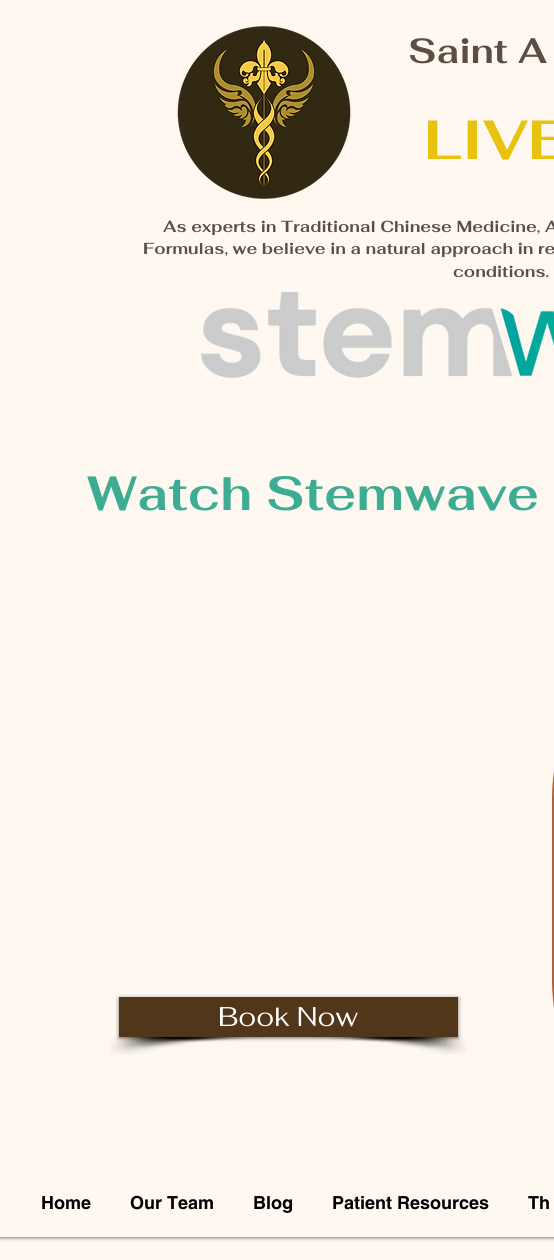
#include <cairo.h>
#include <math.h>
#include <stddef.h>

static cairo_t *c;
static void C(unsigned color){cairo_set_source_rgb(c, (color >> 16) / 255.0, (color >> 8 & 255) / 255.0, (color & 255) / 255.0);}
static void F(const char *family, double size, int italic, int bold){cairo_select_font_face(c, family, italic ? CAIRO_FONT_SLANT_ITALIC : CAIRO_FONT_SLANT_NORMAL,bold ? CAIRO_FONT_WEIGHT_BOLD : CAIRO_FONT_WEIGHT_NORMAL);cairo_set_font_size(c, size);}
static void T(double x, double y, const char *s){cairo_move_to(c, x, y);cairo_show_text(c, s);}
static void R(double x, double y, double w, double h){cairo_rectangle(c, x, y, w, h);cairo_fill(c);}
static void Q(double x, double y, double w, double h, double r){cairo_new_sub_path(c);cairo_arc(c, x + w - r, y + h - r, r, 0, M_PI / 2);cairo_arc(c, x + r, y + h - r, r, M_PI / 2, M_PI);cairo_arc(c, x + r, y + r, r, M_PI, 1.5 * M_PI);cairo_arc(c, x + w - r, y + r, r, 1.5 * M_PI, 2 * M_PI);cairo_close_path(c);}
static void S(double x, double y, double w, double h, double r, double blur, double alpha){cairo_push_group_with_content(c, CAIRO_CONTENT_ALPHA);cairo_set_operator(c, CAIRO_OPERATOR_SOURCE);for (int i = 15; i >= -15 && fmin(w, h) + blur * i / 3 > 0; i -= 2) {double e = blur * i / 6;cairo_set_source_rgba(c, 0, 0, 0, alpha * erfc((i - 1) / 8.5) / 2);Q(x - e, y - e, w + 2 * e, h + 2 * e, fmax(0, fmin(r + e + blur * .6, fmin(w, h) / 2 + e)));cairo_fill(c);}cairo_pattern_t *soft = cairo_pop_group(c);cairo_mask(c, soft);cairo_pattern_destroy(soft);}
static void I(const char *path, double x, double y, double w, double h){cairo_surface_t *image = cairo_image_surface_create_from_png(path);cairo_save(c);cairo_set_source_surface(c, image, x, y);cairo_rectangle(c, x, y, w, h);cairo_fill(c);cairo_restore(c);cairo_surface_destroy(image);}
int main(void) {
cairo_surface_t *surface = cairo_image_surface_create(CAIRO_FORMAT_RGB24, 554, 1260);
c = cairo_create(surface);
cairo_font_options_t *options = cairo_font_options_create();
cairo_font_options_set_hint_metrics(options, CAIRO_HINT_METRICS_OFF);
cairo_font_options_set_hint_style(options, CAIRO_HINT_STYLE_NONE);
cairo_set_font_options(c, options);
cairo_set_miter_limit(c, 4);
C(0xfff8f1);
cairo_paint(c);
C(0x000000);
S(0,0,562,1237,0,2.5,.7);
C(0xfff8f1);
R(0,0,554,1237);
I("1.png",177,26,174,173);
F("Fahkwang",35,0,1);
C(0x5b4d43);
T(408,63,"Saint A");
F("Fahkwang",55,0,1);
C(0xe8c20c);
T(424,159,"LIVE");
F("Fahkwang",16,0,1);
C(0x5b4d43);
T(163,232,"As experts in Traditional Chinese Medicine, A");
T(143,254,"Formulas, we believe in a natural approach in re");
T(453,277,"conditions.");
I("2.png",201,292,353,86);
F("Fahkwang",48,0,1);
C(0x3cac92);
T(87,510,"Watch Stemwave");
I("3.png",110,1037,154,18);
I("4.png",313,1037,154,18);
C(0x000000);
S(119,998,339,40,0,2,.6);
C(0x523619);
R(119,997,339,40);
F("Fahkwang",27,0,0);
C(0xffffff);
T(218,1026,"Book Now");
Q(556,603,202,573,196);
C(0xae633f);
cairo_set_line_width(c,8);
cairo_stroke(c);
F("helvetica",18,0,1);
C(0x000000);
T(41,1209,"Home");
T(130,1209,"Our Team");
T(253,1209,"Blog");
T(332,1209,"Patient Resources");
T(528,1209,"Th");
cairo_surface_write_to_png(surface, "o.png");
cairo_font_options_destroy(options);
cairo_destroy(c);
cairo_surface_destroy(surface);
return 0;
}
